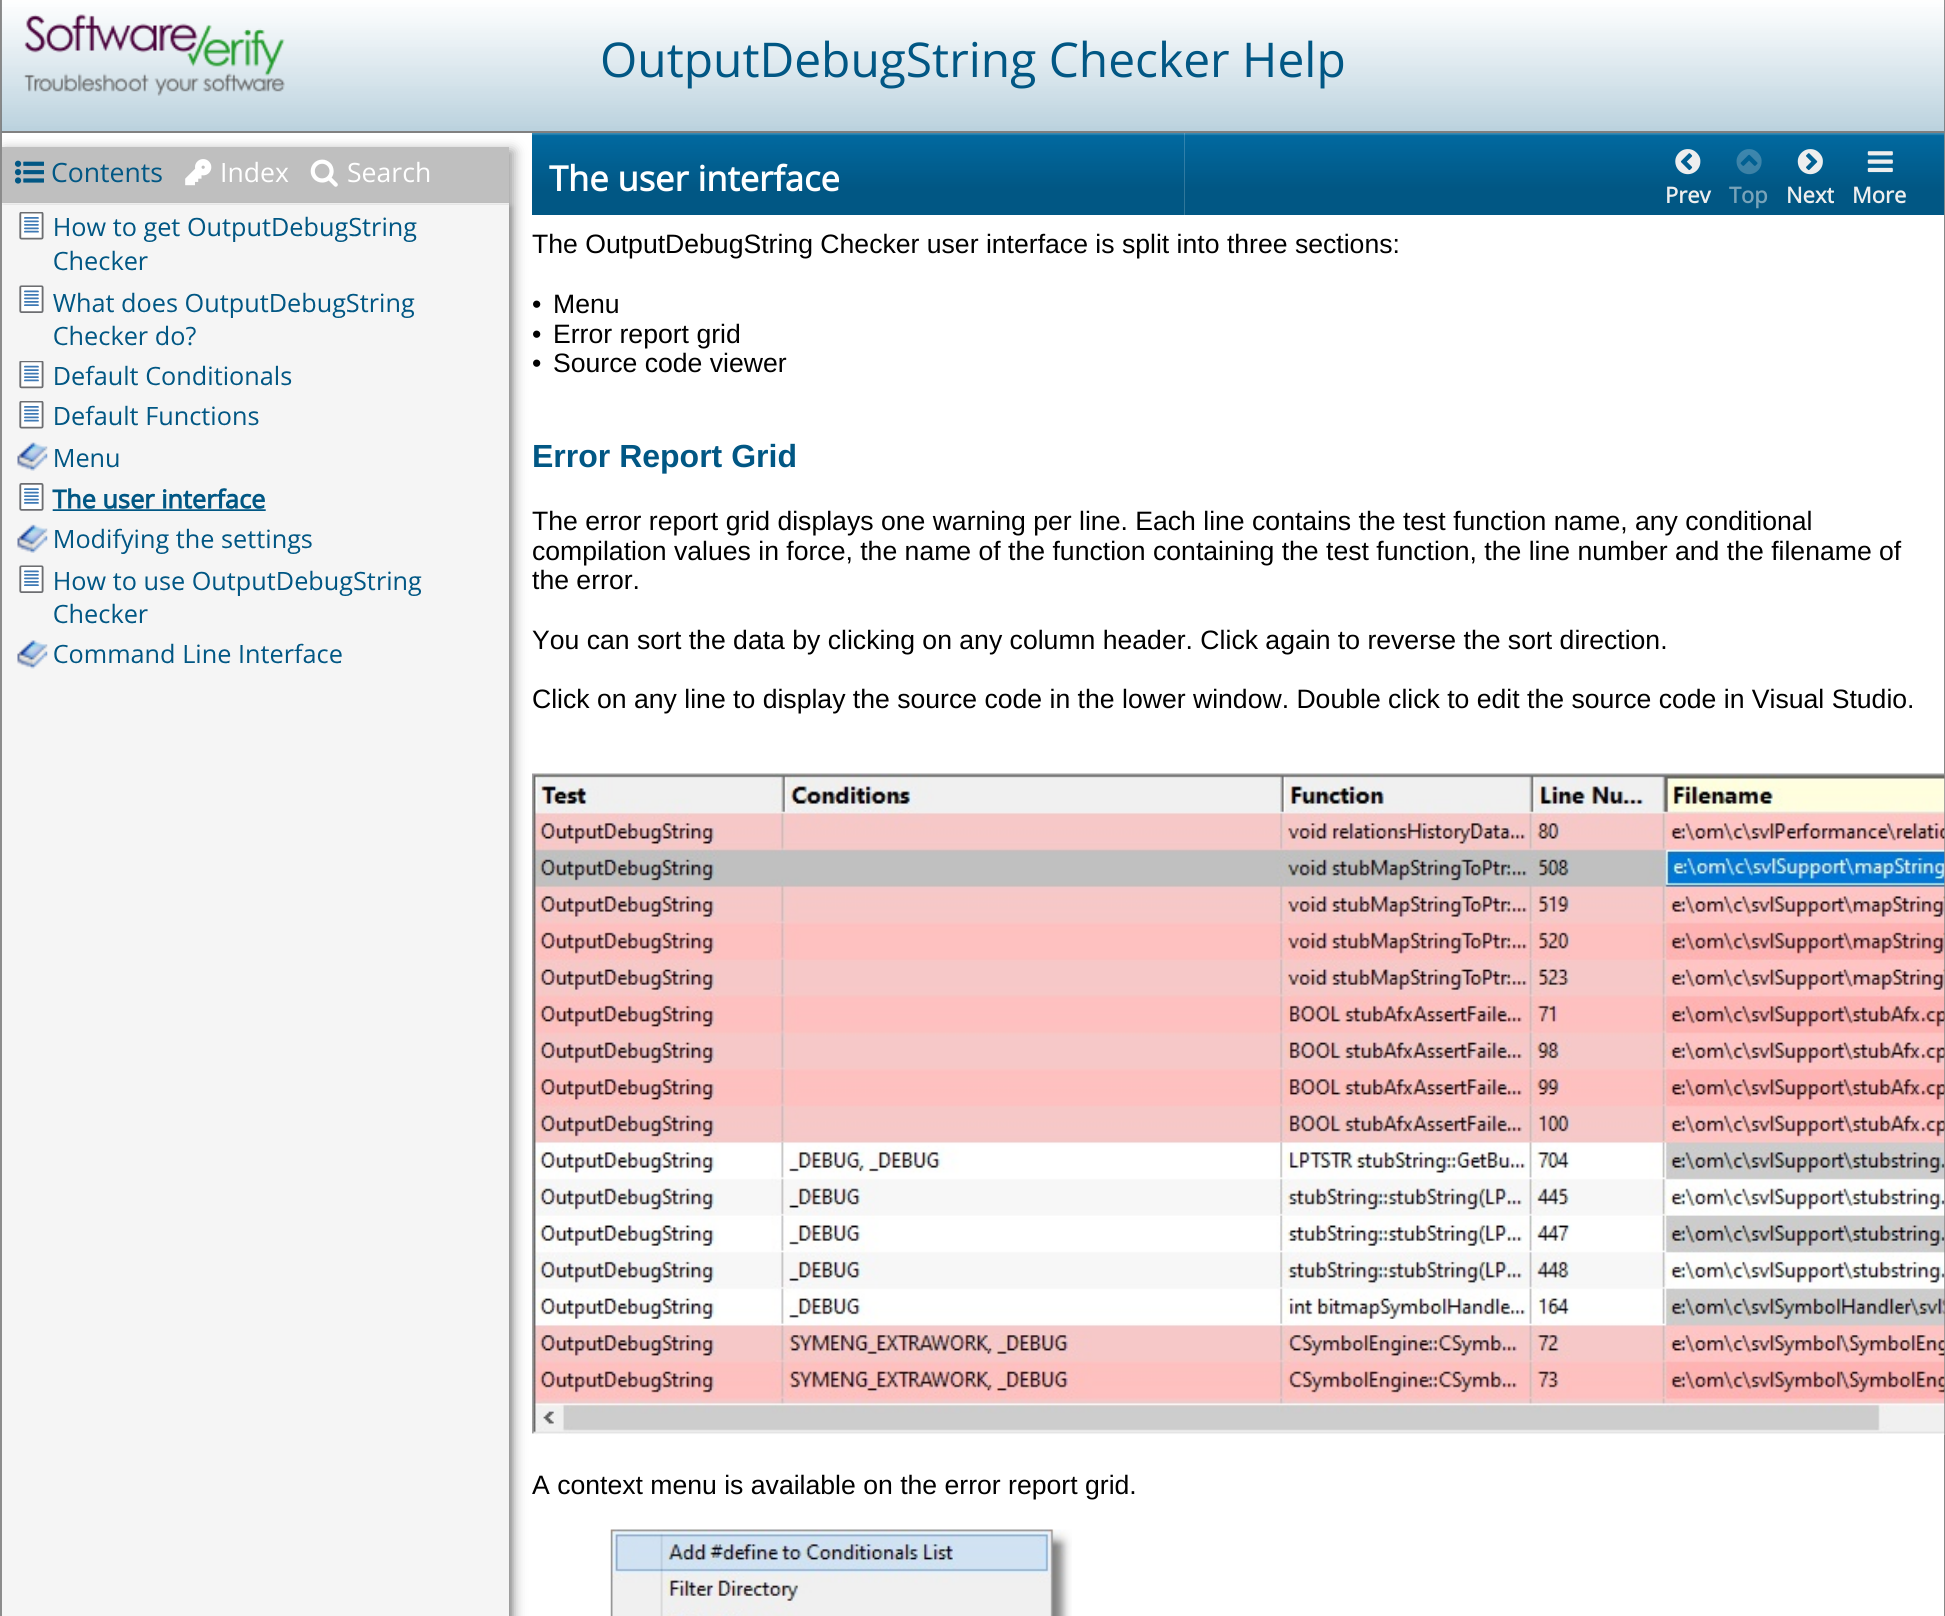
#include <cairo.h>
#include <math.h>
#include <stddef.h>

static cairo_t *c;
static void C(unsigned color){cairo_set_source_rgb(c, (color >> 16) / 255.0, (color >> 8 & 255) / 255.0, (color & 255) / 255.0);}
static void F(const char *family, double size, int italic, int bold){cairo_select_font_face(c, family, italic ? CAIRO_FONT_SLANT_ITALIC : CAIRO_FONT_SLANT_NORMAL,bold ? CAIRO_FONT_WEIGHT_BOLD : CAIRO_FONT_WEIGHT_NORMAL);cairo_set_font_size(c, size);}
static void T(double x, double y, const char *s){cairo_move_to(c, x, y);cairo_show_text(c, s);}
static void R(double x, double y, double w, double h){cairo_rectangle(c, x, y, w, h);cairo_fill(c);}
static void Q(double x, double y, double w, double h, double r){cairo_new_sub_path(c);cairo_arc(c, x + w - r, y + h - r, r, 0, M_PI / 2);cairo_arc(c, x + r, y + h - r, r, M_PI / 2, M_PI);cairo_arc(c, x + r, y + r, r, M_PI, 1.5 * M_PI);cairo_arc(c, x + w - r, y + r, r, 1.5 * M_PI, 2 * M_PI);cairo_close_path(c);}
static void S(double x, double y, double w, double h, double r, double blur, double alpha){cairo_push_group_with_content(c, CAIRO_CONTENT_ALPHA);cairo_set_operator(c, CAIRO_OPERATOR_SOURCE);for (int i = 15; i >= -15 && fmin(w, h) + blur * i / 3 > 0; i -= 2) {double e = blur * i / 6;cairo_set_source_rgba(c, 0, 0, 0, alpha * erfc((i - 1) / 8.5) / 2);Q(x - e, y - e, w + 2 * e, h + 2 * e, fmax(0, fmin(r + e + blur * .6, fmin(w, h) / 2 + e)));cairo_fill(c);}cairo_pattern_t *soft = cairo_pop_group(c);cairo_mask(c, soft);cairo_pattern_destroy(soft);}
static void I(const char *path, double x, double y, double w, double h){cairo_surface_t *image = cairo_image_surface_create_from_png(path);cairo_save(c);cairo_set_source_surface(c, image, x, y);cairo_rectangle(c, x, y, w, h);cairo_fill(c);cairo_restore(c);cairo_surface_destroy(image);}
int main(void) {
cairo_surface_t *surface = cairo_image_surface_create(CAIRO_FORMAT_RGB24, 1945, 1616);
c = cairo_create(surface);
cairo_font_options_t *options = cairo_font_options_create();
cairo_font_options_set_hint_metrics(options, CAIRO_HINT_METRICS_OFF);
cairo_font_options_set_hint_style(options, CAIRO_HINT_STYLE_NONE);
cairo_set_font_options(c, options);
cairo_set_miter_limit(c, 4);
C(0xffffff);
cairo_paint(c);
C(0x888888);
R(1944,0,1,1616);
R(0,0,2,1616);
I("1.png",1,0,1944,133);
I("2.png",23,14,262,82);
C(0x808080);
R(2,131,1942,2);
F("Open Sans",47.9,0,0);
C(0x015784);
T(600,77,"OutputDebugString Checker Help");
I("7.png",532,133,653,82);
I("13.png",532,773,1413,662);
C(0x959595);
S(5,151,508,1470,0,6.5,1);
C(0xf5f5f5);
R(2,203,507,1413);
C(0xbfbfbf);
R(2,147,507,56);
I("3.png",14,160,30,24);
F("Open Sans",26.6,0,0);
C(0x015784);
T(51,182,"Contents");
I("4.png",185,159,27,27);
C(0xffffff);
T(220,182,"Index");
I("5.png",310,159,28,28);
T(347,182,"Search");
cairo_save(c);
cairo_set_fill_rule(c,CAIRO_FILL_RULE_EVEN_ODD);
cairo_new_path(c);
cairo_move_to(c,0,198);
cairo_line_to(c,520,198);
cairo_line_to(c,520,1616);
cairo_line_to(c,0,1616);
cairo_close_path(c);
cairo_move_to(c,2,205);
cairo_line_to(c,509,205);
cairo_line_to(c,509,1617);
cairo_line_to(c,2,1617);
cairo_close_path(c);
cairo_clip(c);
C(0x959595);
S(4,207,507,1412,0,2.5,1);
cairo_restore(c);
I("6.png",17,212,405,457);
F("Open Sans",34.5,0,1);
T(549,191,"The user interface");
I("8.png",1184,133,761,82);
I("9.png",1675,149,26,26);
F("Open Sans",22,0,1);
C(0xeeeeee);
T(1665,203,"Prev");
I("10.png",1736,149,26,26);
C(0x78a3b9);
T(1729,203,"Top");
I("11.png",1797,149,26,26);
C(0xeeeeee);
T(1786,203,"Next");
I("12.png",1867,151,26,22);
T(1852,203,"More");
F("Liberation Sans",26.6,0,0);
C(0x000000);
T(532,253,"The OutputDebugString Checker user interface is split into three sections:");
T(532,313,"•");
T(553,313,"Menu");
T(532,343,"•");
T(553,343,"Error report grid");
T(532,372,"•");
T(553,372,"Source code viewer");
F("Liberation Sans",32,0,1);
C(0x015784);
T(532,467,"Error Report Grid");
F("Liberation Sans",26.6,0,0);
C(0x000000);
T(532,530,"The error report grid displays one warning per line. Each line contains the test function name, any conditional");
T(532,560,"compilation values in force, the name of the function containing the test function, the line number and the filename of");
T(532,589,"the error.");
T(532,649,"You can sort the data by clicking on any column header. Click again to reverse the sort direction.");
T(532,708,"Click on any line to display the source code in the lower window. Double click to edit the source code in Visual Studio.");
T(532,1494,"A context menu is available on the error report grid.");
I("14.png",610,1529,462,87);
cairo_surface_write_to_png(surface, "o.png");
cairo_font_options_destroy(options);
cairo_destroy(c);
cairo_surface_destroy(surface);
return 0;
}
